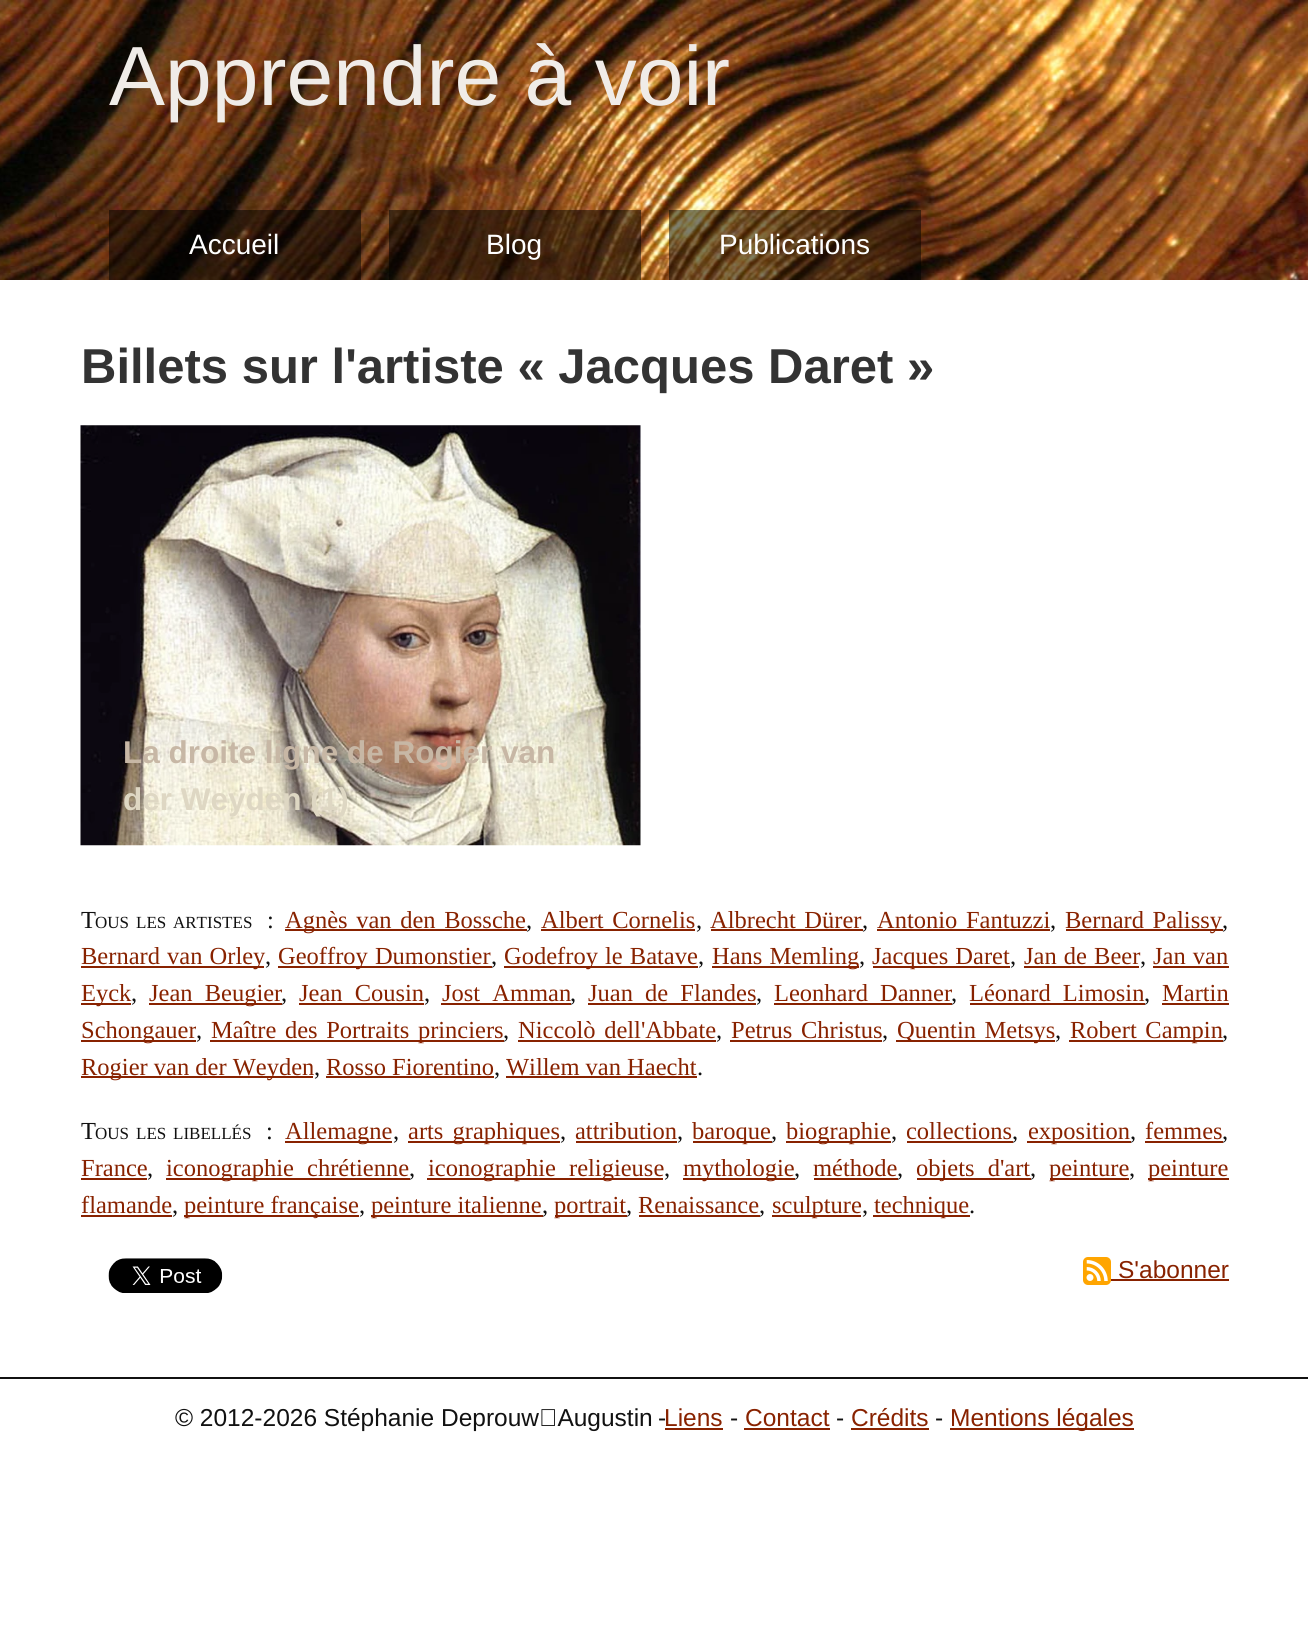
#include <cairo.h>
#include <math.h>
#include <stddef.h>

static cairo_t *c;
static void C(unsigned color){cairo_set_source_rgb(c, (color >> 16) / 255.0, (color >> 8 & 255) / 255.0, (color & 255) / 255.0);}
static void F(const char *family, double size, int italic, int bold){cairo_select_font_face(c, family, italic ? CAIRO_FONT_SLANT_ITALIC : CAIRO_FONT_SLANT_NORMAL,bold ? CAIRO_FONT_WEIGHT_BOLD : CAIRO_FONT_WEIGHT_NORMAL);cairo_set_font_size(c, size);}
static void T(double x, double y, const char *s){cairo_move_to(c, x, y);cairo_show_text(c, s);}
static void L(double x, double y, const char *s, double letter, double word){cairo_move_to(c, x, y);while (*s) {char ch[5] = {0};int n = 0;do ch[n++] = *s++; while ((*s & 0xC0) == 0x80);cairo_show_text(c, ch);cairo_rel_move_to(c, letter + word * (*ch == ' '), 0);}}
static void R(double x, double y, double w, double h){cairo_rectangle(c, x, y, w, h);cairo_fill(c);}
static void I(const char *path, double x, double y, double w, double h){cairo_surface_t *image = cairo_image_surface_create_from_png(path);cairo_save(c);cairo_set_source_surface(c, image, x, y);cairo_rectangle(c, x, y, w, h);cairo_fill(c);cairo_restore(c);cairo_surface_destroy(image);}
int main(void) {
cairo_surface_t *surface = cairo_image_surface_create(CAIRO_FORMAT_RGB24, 1308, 1633);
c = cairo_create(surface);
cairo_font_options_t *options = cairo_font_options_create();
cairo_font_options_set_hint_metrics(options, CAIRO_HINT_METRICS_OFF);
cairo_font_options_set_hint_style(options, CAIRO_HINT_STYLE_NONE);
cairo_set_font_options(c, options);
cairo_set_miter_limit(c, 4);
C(0xffffff);
cairo_paint(c);
I("1.png",0,0,1308,280);
F("Liberation Sans",84,0,0);
C(0xf0ece8);
T(109,105,"Apprendre à voir");
cairo_set_source_rgba(c,0,0,0,0.5);
R(109,210,252,70);
F("Liberation Sans",28,0,0);
C(0xffffff);
T(189,254,"Accueil");
cairo_set_source_rgba(c,0,0,0,0.5);
R(389,210,252,70);
C(0xffffff);
T(486,254,"Blog");
cairo_set_source_rgba(c,0,0,0,0.5);
R(669,210,252,70);
C(0xffffff);
T(719,254,"Publications");
F("Liberation Sans",49,0,1);
C(0x333333);
T(81,383,"Billets sur l'artiste « Jacques Daret »");
I("2.png",80,425,561,421);
F("Liberation Sans",31.5,0,1);
C(0xc7b7a5);
T(123,763,"La droite ligne de Rogier van");
C(0xded7c3);
T(123,810,"der Weyden (1)");
F("Liberation Serif",24.5,0,0);
C(0x111111);
T(81,928,"T");
F("Liberation Serif",17,0,0);
T(95,928,"OUS");
T(136,928,"LES");
T(173,928,"ARTISTES");
F("Liberation Serif",24.5,0,0);
T(267,928,":");
C(0x882200);
R(285,929,242,2);
L(285,928,"Agnès van den Bossche",0,2.5);
C(0x111111);
T(526,928,",");
C(0x882200);
L(541,928,"Albert Cornelis",0,2.5);
C(0x111111);
T(696,928,",");
C(0x882200);
R(541,929,154,2);
L(710,928,"Albrecht Dürer",0,2.5);
C(0x111111);
T(862,928,",");
C(0x882200);
R(711,929,152,2);
L(877,928,"Antonio Fantuzzi",0,2.5);
C(0x111111);
T(1050,928,",");
C(0x882200);
R(877,929,173,2);
R(1066,929,157,2);
L(1065,928,"Bernard Palissy",0,2.5);
C(0x111111);
T(1222,928,",");
C(0x882200);
R(81,966,183,2);
L(81,964,"Bernard van Orley",0,1);
C(0x111111);
T(265,964,",");
C(0x882200);
R(278,966,214,2);
L(278,964,"Geoffroy Dumonstier",0,1);
C(0x111111);
T(491,964,",");
C(0x882200);
R(504,966,194,2);
L(504,964,"Godefroy le Batave",0,1);
C(0x111111);
T(698,964,",");
C(0x882200);
R(712,966,147,2);
L(712,964,"Hans Memling",0,1);
C(0x111111);
T(859,964,",");
C(0x882200);
R(873,966,137,2);
L(872,964,"Jacques Daret",0,1);
C(0x111111);
T(1010,964,",");
C(0x882200);
L(1024,964,"Jan de Beer",0,1);
C(0x111111);
T(1140,964,",");
C(0x882200);
R(1024,966,115,2);
L(1153,964,"Jan van",0,1);
R(1153,966,76,2);
R(81,1003,50,2);
T(81,1001,"Eyck");
C(0x111111);
T(131,1001,",");
C(0x882200);
R(149,1003,133,2);
L(149,1001,"Jean Beugier",0,6);
C(0x111111);
T(281,1001,",");
C(0x882200);
L(299,1001,"Jean Cousin",0,6);
C(0x111111);
T(424,1001,",");
C(0x882200);
R(299,1003,125,2);
L(442,1001,"Jost Amman",0,6);
C(0x111111);
T(570,1001,",");
C(0x882200);
R(441,1003,130,2);
L(588,1001,"Juan de Flandes",0,6);
C(0x111111);
T(756,1001,",");
C(0x882200);
R(588,1003,168,2);
L(774,1001,"Leonhard Danner",0,6);
C(0x111111);
T(951,1001,",");
C(0x882200);
R(774,1003,178,2);
L(969,1001,"Léonard Limosin",0,6);
R(970,1003,175,2);
C(0x111111);
T(1144,1001,",");
C(0x882200);
T(1162,1001,"Martin");
R(1162,1003,67,2);
R(81,1040,115,2);
T(81,1038,"Schongauer");
C(0x111111);
T(196,1038,",");
C(0x882200);
R(210,1040,294,2);
L(211,1038,"Maître des Portraits princiers",0,2.5);
C(0x111111);
T(503,1038,",");
C(0x882200);
L(518,1038,"Niccolò dell'Abbate",0,2.5);
C(0x111111);
T(716,1038,",");
C(0x882200);
R(518,1040,198,2);
L(731,1038,"Petrus Christus",0,2.5);
C(0x111111);
T(882,1038,",");
C(0x882200);
R(730,1040,152,2);
R(896,1040,159,2);
L(897,1038,"Quentin Metsys",0,2.5);
C(0x111111);
T(1055,1038,",");
C(0x882200);
R(1069,1040,154,2);
L(1070,1038,"Robert Campin",0,2.5);
C(0x111111);
T(1222,1038,",");
C(0x882200);
R(81,1076,232,2);
T(81,1075,"Rogier van der Weyden");
C(0x111111);
T(314,1075,",");
C(0x882200);
T(326,1075,"Rosso Fiorentino");
C(0x111111);
T(494,1075,",");
C(0x882200);
R(326,1076,168,2);
T(506,1075,"Willem van Haecht");
C(0x111111);
T(697,1075,".");
C(0x882200);
R(506,1076,191,2);
C(0x111111);
T(81,1139,"T");
F("Liberation Serif",17,0,0);
T(95,1139,"OUS");
T(136,1139,"LES");
T(173,1139,"LIBELLÉS");
F("Liberation Serif",24.5,0,0);
T(266,1139,":");
C(0x882200);
R(285,1141,107,2);
T(285,1139,"Allemagne");
C(0x111111);
T(393,1139,",");
C(0x882200);
R(408,1141,152,2);
L(408,1139,"arts graphiques",0,3);
C(0x111111);
T(560,1139,",");
C(0x882200);
T(575,1139,"attribution");
C(0x111111);
T(677,1139,",");
C(0x882200);
R(576,1141,101,2);
R(693,1141,79,2);
T(692,1139,"baroque");
C(0x111111);
T(771,1139,",");
C(0x882200);
R(786,1141,105,2);
T(786,1139,"biographie");
C(0x111111);
T(891,1139,",");
C(0x882200);
T(906,1139,"collections");
C(0x111111);
T(1012,1139,",");
C(0x882200);
R(907,1141,106,2);
R(1027,1141,104,2);
T(1028,1139,"exposition");
C(0x111111);
T(1130,1139,",");
C(0x882200);
T(1145,1139,"femmes");
C(0x111111);
T(1222,1139,",");
C(0x882200);
R(1145,1141,78,2);
T(81,1176,"France");
C(0x111111);
T(147,1176,",");
C(0x882200);
R(81,1178,66,2);
R(166,1178,244,2);
L(166,1176,"iconographie chrétienne",0,7);
C(0x111111);
T(409,1176,",");
C(0x882200);
R(427,1178,236,2);
L(428,1176,"iconographie religieuse",0,7);
C(0x111111);
T(664,1176,",");
C(0x882200);
R(683,1178,112,2);
T(683,1176,"mythologie");
C(0x111111);
T(794,1176,",");
C(0x882200);
T(813,1176,"méthode");
C(0x111111);
T(897,1176,",");
C(0x882200);
R(814,1178,84,2);
R(917,1178,114,2);
L(916,1176,"objets d'art",0,7);
C(0x111111);
T(1030,1176,",");
C(0x882200);
R(1050,1178,79,2);
T(1049,1176,"peinture");
C(0x111111);
T(1129,1176,",");
C(0x882200);
R(1148,1178,81,2);
T(1148,1176,"peinture");
T(81,1213,"flamande");
C(0x111111);
T(172,1213,",");
C(0x882200);
R(81,1215,91,2);
R(184,1215,175,2);
T(184,1213,"peinture française");
C(0x111111);
T(359,1213,",");
C(0x882200);
R(371,1215,172,2);
T(371,1213,"peinture italienne");
C(0x111111);
T(542,1213,",");
C(0x882200);
R(555,1215,72,2);
T(554,1213,"portrait");
C(0x111111);
T(626,1213,",");
C(0x882200);
T(638,1213,"Renaissance");
C(0x111111);
T(759,1213,",");
C(0x882200);
R(639,1215,121,2);
R(772,1215,89,2);
T(772,1213,"sculpture");
C(0x111111);
T(862,1213,",");
C(0x882200);
R(873,1215,97,2);
T(874,1213,"technique");
C(0x111111);
T(969,1213,".");
I("3.png",108,1258,115,35);
I("4.png",1083,1257,28,28);
F("Liberation Sans",24.5,0,0);
C(0x882200);
T(1118,1278,"S'abonner");
R(1111,1279,118,2);
C(0x111111);
R(0,1377,1308,2);
T(175,1426,"© 2012-2026 Stéphanie Deprouw‑Augustin");
T(658,1426,"-");
C(0x882200);
T(664,1426,"Liens");
R(665,1428,58,2);
C(0x111111);
T(730,1426,"-");
C(0x882200);
T(745,1426,"Contact");
R(744,1428,86,2);
C(0x111111);
T(836,1426,"-");
C(0x882200);
T(851,1426,"Crédits");
R(851,1428,78,2);
C(0x111111);
T(935,1426,"-");
C(0x882200);
R(950,1428,184,2);
T(950,1426,"Mentions légales");
cairo_surface_write_to_png(surface, "o.png");
cairo_font_options_destroy(options);
cairo_destroy(c);
cairo_surface_destroy(surface);
return 0;
}
